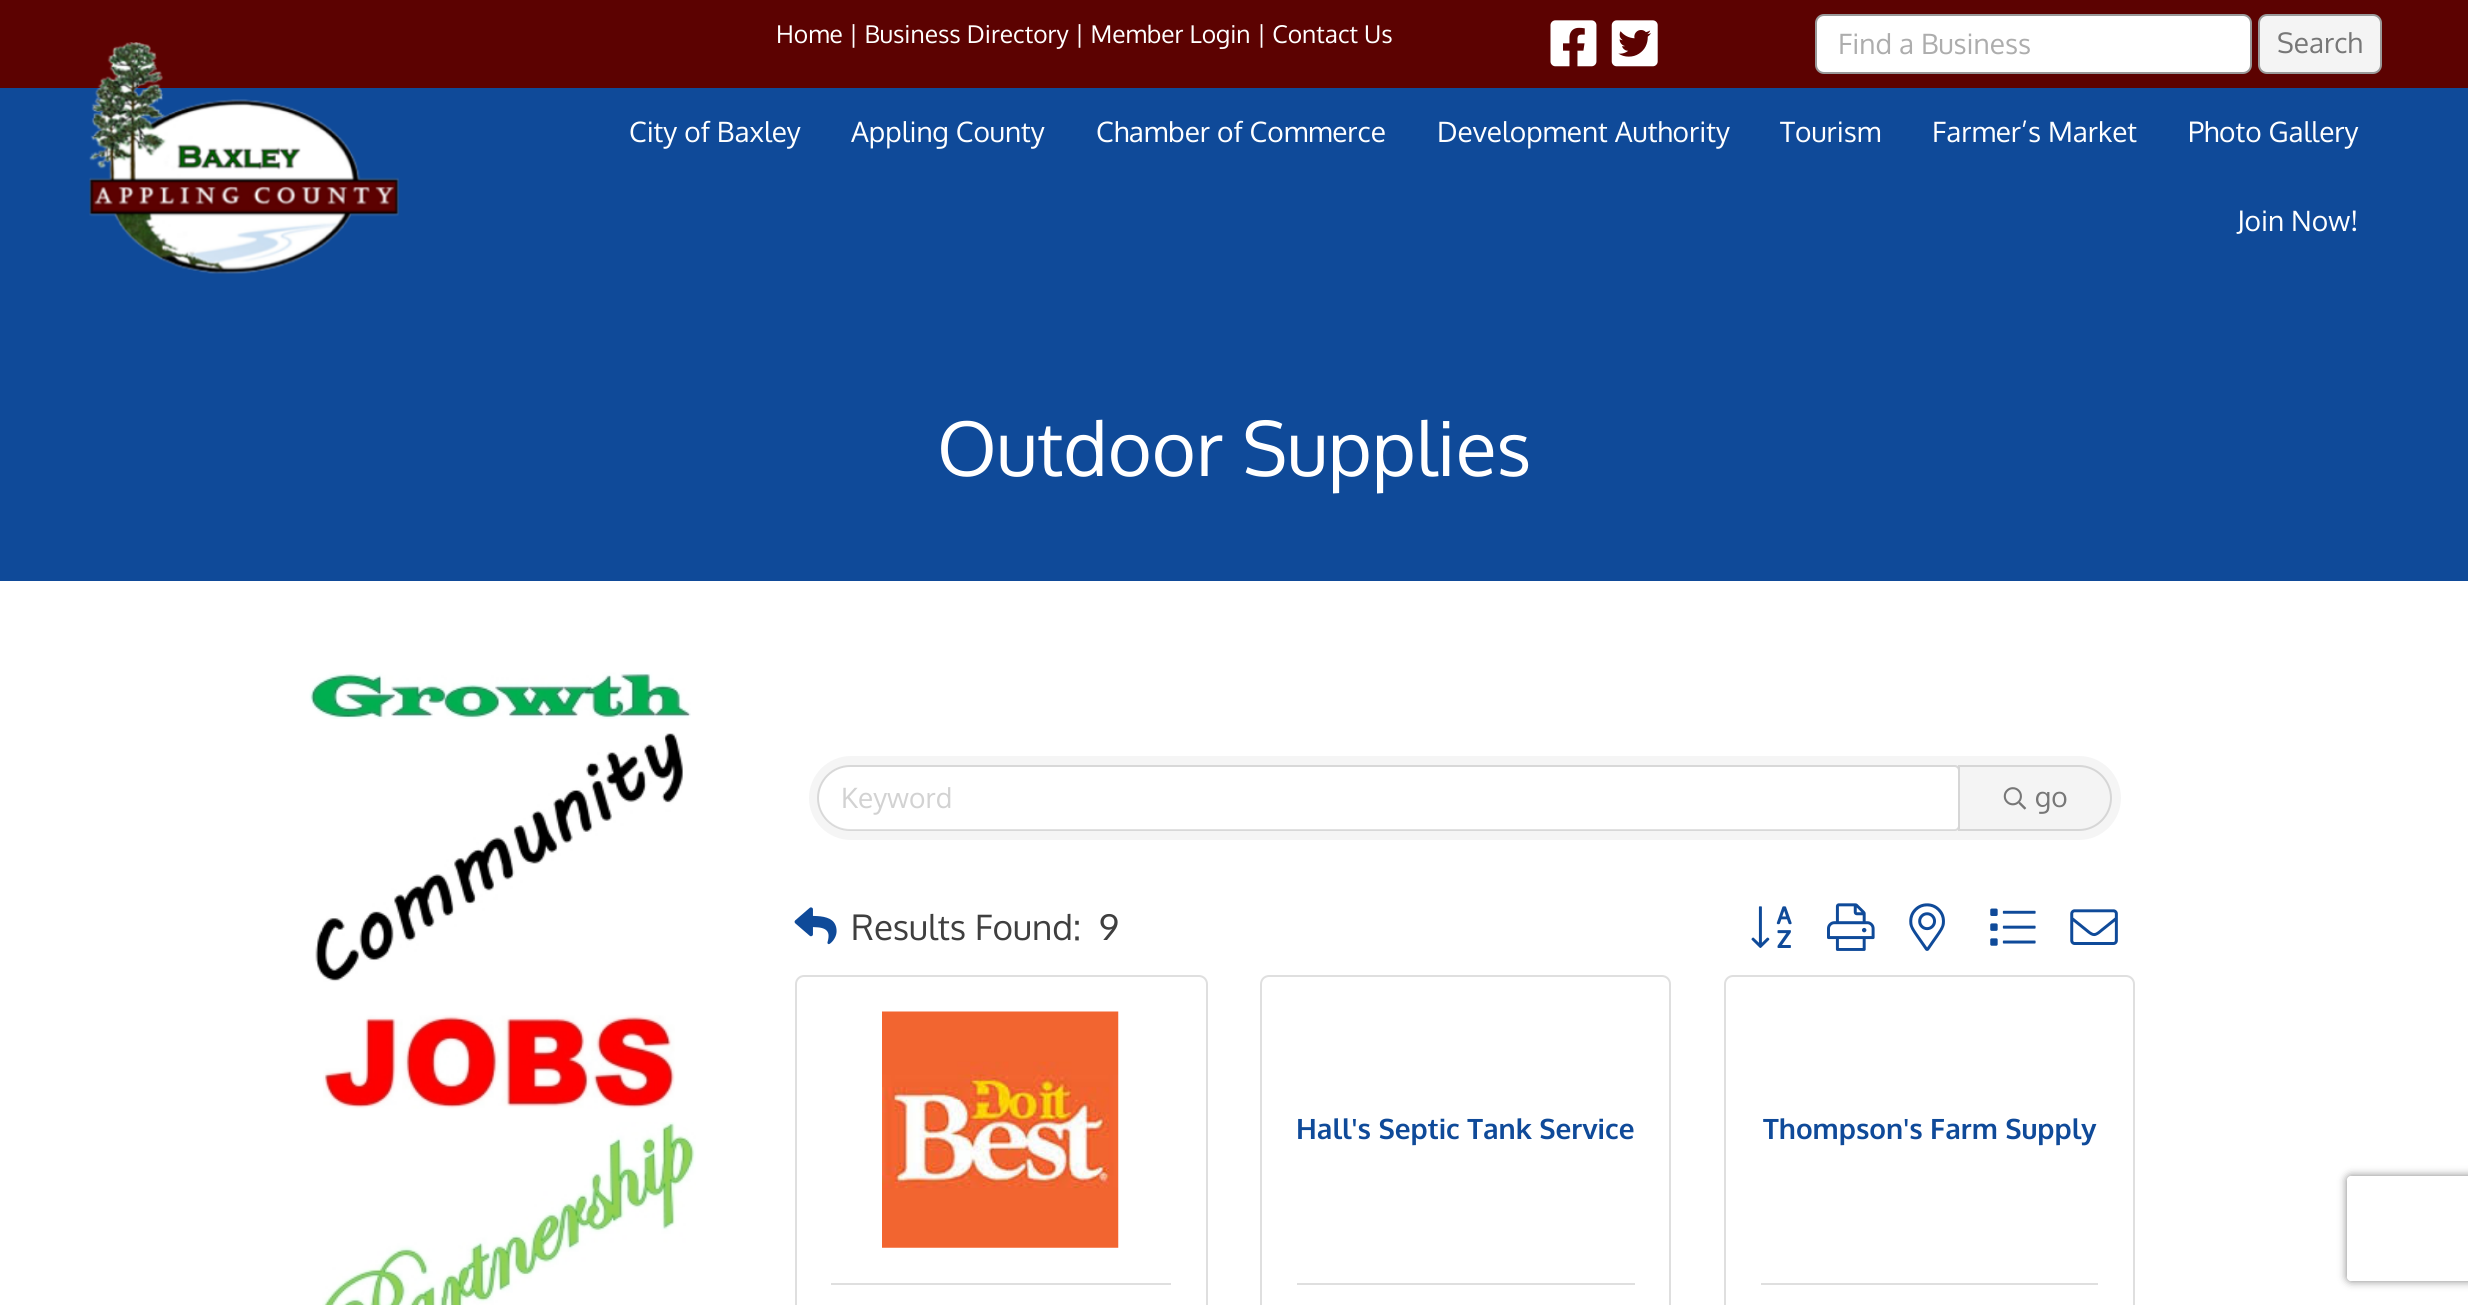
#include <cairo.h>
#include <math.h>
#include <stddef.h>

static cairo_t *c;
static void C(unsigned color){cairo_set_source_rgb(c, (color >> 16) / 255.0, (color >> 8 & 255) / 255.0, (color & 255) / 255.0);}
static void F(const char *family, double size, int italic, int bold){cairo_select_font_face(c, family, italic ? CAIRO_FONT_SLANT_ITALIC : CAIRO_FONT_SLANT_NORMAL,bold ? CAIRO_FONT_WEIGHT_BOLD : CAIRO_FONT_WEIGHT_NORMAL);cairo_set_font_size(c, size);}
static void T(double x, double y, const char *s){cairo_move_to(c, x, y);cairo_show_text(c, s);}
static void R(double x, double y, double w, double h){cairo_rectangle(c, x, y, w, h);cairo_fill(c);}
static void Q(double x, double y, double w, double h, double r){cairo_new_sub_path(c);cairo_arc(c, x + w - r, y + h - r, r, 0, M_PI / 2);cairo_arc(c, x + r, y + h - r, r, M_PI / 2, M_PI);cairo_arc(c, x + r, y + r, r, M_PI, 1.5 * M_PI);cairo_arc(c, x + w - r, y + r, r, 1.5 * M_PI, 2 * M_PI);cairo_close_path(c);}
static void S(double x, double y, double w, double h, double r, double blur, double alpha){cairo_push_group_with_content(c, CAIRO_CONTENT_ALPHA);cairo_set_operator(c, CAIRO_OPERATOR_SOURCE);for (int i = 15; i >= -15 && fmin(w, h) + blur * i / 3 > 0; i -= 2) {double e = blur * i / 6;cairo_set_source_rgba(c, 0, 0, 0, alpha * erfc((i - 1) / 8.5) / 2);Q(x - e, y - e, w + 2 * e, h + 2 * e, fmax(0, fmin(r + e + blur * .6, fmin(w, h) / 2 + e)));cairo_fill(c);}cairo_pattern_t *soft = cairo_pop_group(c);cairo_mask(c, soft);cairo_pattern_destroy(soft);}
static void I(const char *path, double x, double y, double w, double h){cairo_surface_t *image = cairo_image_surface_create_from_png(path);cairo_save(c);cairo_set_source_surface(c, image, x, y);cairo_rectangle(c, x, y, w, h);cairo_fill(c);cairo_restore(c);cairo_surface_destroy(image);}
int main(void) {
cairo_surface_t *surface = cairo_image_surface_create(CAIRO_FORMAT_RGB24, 2468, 1305);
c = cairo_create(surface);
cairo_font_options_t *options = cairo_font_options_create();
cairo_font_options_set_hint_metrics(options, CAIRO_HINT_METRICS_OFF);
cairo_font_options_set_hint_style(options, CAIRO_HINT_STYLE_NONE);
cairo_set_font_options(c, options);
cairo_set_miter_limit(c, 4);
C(0xffffff);
cairo_paint(c);
C(0x5c0201);
R(0,0,2468,88);
F("Oxygen",24.5,0,0);
C(0xffffff);
T(776,43,"Home | Business Directory | Member Login | Contact Us");
I("1.png",1550,20,47,47);
I("2.png",1611,20,47,47);
Q(1816,15,435,58,8);
cairo_fill_preserve(c);
C(0x999999);
cairo_stroke(c);
F("Oxygen",28,0,0);
C(0xadadad);
T(1838,54,"Find a Business");
C(0xf4f4f4);
Q(2259,15,122,58,8);
cairo_fill_preserve(c);
C(0x999999);
cairo_stroke(c);
C(0x777777);
T(2277,53,"Search");
C(0x0f4a99);
R(0,88,2468,493);
I("3.png",89,42,310,232);
C(0xffffff);
T(629,142,"City of Baxley");
T(851,142,"Appling County");
T(1096,142,"Chamber of Commerce");
T(1437,142,"Development Authority");
T(1780,142,"Tourism");
T(1932,142,"Farmer’s Market");
T(2188,142,"Photo Gallery");
T(2237,231,"Join Now!");
F("Oxygen",75.25,0,0);
T(937,476,"Outdoor Supplies");
I("4.png",309,672,382,47);
I("5.png",315,733,368,249);
I("6.png",323,1015,352,94);
I("7.png",322,1122,374,183);
C(0xf5f5f5);
Q(809,756,1312,84,42);
cairo_fill(c);
C(0xffffff);
cairo_new_path(c);
cairo_move_to(c,850.5,767);
cairo_line_to(c,1954,767);
cairo_curve_to(c,1956,767,1958,769,1958,771);
cairo_line_to(c,1958,826);
cairo_curve_to(c,1958,828,1956,830,1954,830);
cairo_line_to(c,850.5,830);
cairo_curve_to(c,833,830,819,816,819,798.5);
cairo_curve_to(c,819,781,833,767,850.5,767);
cairo_close_path(c);
cairo_fill(c);
cairo_new_path(c);
cairo_move_to(c,850,766);
cairo_line_to(c,1955,766);
cairo_curve_to(c,1957,766,1959,768,1959,770);
cairo_line_to(c,1959,826);
cairo_curve_to(c,1959,828,1957,830,1955,830);
cairo_line_to(c,850,830);
cairo_curve_to(c,832.5,830,818,815.5,818,798);
cairo_curve_to(c,818,780.5,832.5,766,850,766);
cairo_close_path(c);
cairo_set_source_rgba(c,0,0,0,0.12);
cairo_stroke(c);
F("Oxygen",28,0,0);
C(0xd2d2d2);
T(841,808,"Keyword");
C(0xf4f4f4);
cairo_new_path(c);
cairo_move_to(c,1959,766);
cairo_line_to(c,2079,766);
cairo_curve_to(c,2096.5,766,2111,780.5,2111,798);
cairo_curve_to(c,2111,815.5,2096.5,830,2079,830);
cairo_line_to(c,1959,830);
cairo_close_path(c);
cairo_fill_preserve(c);
C(0xd6d6d6);
cairo_stroke(c);
I("8.png",2003,787,24,23);
C(0x777777);
T(2035,807,"go");
I("9.png",794,907,43,38);
F("Oxygen",35,0,0);
C(0x3f3f3f);
T(851,940,"Results Found:");
T(1099,940,"9");
I("10.png",1751,906,41,42);
I("11.png",1827,903,48,48);
I("12.png",1909,903,36,48);
I("13.png",1990,908,46,38);
I("14.png",2070,909,48,36);
Q(796,976,411,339,8);
C(0xdfdfdf);
cairo_stroke(c);
I("15.png",882,1011,237,237);
R(831,1283,340,2);
Q(1261,976,409,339,8);
cairo_stroke(c);
F("Oxygen",28,0,1);
C(0x0f4a99);
T(1296,1139,"Hall's Septic Tank Service");
C(0xdfdfdf);
R(1297,1283,338,2);
Q(1725,976,409,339,8);
cairo_stroke(c);
C(0x0f4a99);
T(1763,1139,"Thompson's Farm Supply");
C(0xdfdfdf);
R(1761,1283,337,2);
cairo_save(c);
cairo_set_fill_rule(c,CAIRO_FILL_RULE_EVEN_ODD);
cairo_new_path(c);
cairo_move_to(c,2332,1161);
cairo_line_to(c,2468,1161);
cairo_line_to(c,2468,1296);
cairo_line_to(c,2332,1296);
cairo_close_path(c);
cairo_move_to(c,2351,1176);
cairo_line_to(c,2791,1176);
cairo_curve_to(c,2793,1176,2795,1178,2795,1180);
cairo_line_to(c,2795,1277);
cairo_curve_to(c,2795,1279,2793,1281,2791,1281);
cairo_line_to(c,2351,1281);
cairo_curve_to(c,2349,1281,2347,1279,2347,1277);
cairo_line_to(c,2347,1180);
cairo_curve_to(c,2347,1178,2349,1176,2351,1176);
cairo_close_path(c);
cairo_clip(c);
C(0x808080);
S(2347,1176,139,105,4,4.5,1);
cairo_restore(c);
cairo_surface_write_to_png(surface, "o.png");
cairo_font_options_destroy(options);
cairo_destroy(c);
cairo_surface_destroy(surface);
return 0;
}
